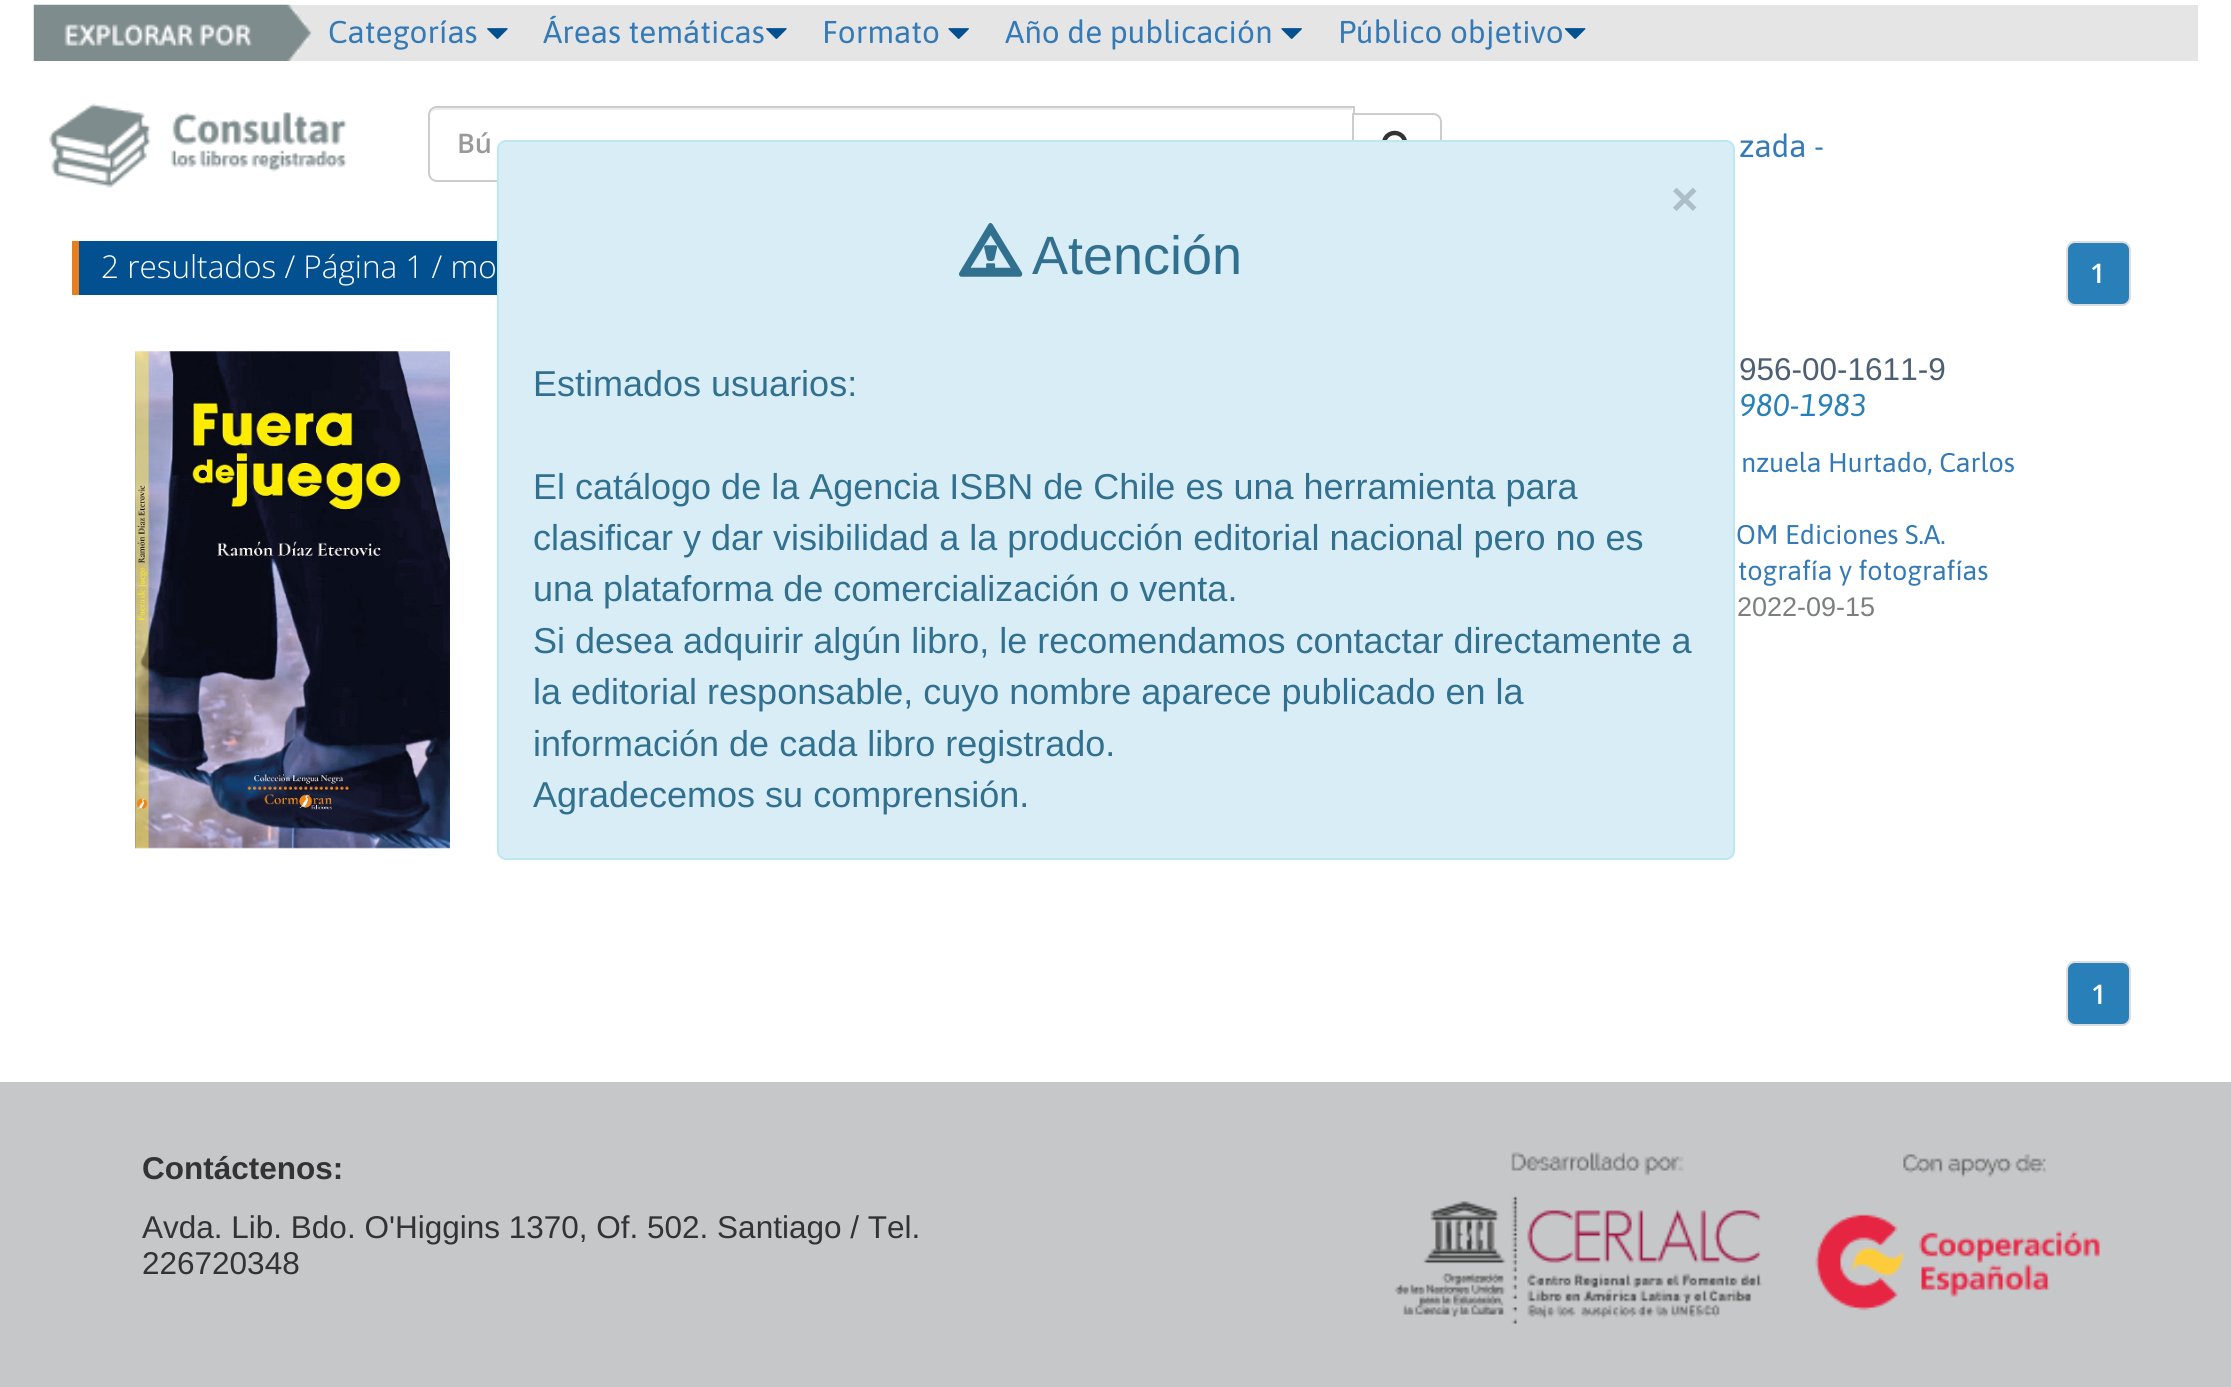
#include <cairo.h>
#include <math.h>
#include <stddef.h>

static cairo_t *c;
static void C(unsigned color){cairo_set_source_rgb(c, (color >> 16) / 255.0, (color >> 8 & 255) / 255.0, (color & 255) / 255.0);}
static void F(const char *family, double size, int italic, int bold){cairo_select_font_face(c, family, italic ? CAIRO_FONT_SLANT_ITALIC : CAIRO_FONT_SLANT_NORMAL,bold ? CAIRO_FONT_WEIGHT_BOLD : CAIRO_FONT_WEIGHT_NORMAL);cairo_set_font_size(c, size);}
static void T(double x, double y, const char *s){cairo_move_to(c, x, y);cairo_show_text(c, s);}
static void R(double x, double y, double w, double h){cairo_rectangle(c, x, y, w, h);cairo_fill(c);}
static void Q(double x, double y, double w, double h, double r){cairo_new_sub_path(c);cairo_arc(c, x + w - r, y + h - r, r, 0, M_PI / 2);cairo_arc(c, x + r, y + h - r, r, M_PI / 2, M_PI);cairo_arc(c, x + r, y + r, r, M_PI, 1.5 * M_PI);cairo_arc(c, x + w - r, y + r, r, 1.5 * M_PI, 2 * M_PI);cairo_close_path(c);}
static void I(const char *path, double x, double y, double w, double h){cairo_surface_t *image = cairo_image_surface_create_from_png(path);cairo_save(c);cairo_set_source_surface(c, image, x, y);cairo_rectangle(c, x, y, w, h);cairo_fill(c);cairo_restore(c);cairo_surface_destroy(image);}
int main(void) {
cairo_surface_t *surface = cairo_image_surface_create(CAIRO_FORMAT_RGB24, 2231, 1387);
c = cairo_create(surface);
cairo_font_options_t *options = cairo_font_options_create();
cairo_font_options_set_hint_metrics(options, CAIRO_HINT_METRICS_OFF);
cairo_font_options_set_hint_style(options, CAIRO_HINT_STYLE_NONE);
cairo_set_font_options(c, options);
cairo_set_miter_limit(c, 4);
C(0xffffff);
cairo_paint(c);
C(0xe5e5e5);
R(289,5,1909,56);
I("1.png",33,4,279,57);
F("Asap",31.5,0,0);
C(0x337ab7);
T(328,43,"Categorías");
I("2.png",487,28,21,11);
T(543,43,"Áreas temáticas");
I("2.png",766,28,21,11);
T(822,43,"Formato");
I("3.png",948,28,21,11);
T(1005,43,"Año de publicación");
I("3.png",1281,28,21,11);
T(1338,43,"Público objetivo");
I("4.png",1564,28,22,11);
I("5.png",49,103,298,85);
C(0xececec);
cairo_new_path(c);
cairo_move_to(c,436,110);
cairo_line_to(c,1352,110);
cairo_line_to(c,1352,108);
cairo_line_to(c,437,108);
cairo_curve_to(c,432,108,430,113,430,117);
cairo_curve_to(c,430,113,433,110,436,110);
cairo_close_path(c);
cairo_fill(c);
cairo_new_path(c);
cairo_move_to(c,437,107);
cairo_line_to(c,1354,107);
cairo_line_to(c,1354,181);
cairo_line_to(c,437,181);
cairo_curve_to(c,432.5,181,429,177.5,429,173);
cairo_line_to(c,429,115);
cairo_curve_to(c,429,110.5,432.5,107,437,107);
cairo_close_path(c);
C(0xcccccc);
cairo_stroke(c);
F("Open Sans SemiBold",27,0,0);
C(0x999999);
T(457,153,"Bú");
C(0xffffff);
cairo_new_path(c);
cairo_move_to(c,1353,114);
cairo_line_to(c,1433,114);
cairo_curve_to(c,1437.5,114,1441,117.5,1441,122);
cairo_line_to(c,1441,167);
cairo_curve_to(c,1441,171.5,1437.5,175,1433,175);
cairo_line_to(c,1353,175);
cairo_close_path(c);
cairo_fill_preserve(c);
C(0xcccccc);
cairo_stroke(c);
I("6.png",1382,130,25,10);
F("Asap",31.5,0,0);
C(0x337ab7);
T(1739,157,"zada -");
C(0x02508f);
R(79,241,418,54);
F("Open Sans Light",31.5,0,0);
C(0xffffff);
T(101,278,"2 resultados / Página 1 / mo");
C(0xe67e22);
R(72,241,7,54);
C(0x2980b9);
Q(2067,242,63,63,8);
cairo_fill_preserve(c);
C(0xdddddd);
cairo_stroke(c);
F("Open Sans SemiBold",27,0,0);
C(0xffffff);
T(2090,283,"1");
I("7.png",135,351,315,498);
F("Liberation Sans",31.5,0,0);
C(0x4d5f72);
T(1739,380,"956-00-1611-9");
F("Asap",31.5,1,0);
C(0x2980b9);
T(1739,416,"980-1983");
F("Asap",27,0,0);
C(0x337ab7);
T(1741,472,"nzuela Hurtado, Carlos");
T(1736,544,"OM Ediciones S.A.");
T(1738,580,"tografía y fotografías");
F("Liberation Sans",27,0,0);
C(0x7c807d);
T(1737,616,"2022-09-15");
C(0x2980b9);
Q(2067,962,63,63,8);
cairo_fill_preserve(c);
C(0xdddddd);
cairo_stroke(c);
F("Open Sans SemiBold",27,0,0);
C(0xffffff);
T(2091,1004,"1");
C(0xc6c7c8);
R(0,1082,2231,305);
F("Liberation Sans",31.5,0,1);
C(0x333333);
T(142,1179,"Contáctenos:");
F("Liberation Sans",31.5,0,0);
T(142,1238,"Avda. Lib. Bdo. O'Higgins 1370, Of. 502. Santiago / Tel.");
T(142,1274,"226720348");
I("8.png",1394,1151,706,173);
C(0xd9edf7);
Q(498,141,1236,718,8);
cairo_fill_preserve(c);
C(0xbce8f1);
cairo_stroke(c);
F("Liberation Sans",47,0,1);
C(0xaebec6);
T(1671,215,"×");
I("9.png",959,223,64,54);
F("Liberation Sans",54,0,0);
C(0x31708f);
T(1032,274,"Atención");
F("Liberation Sans",36,0,0);
T(533,396,"Estimados usuarios:");
T(533,499,"El catálogo de la Agencia ISBN de Chile es una herramienta para");
T(533,550,"clasificar y dar visibilidad a la producción editorial nacional pero no es");
T(533,601,"una plataforma de comercialización o venta.");
T(533,653,"Si desea adquirir algún libro, le recomendamos contactar directamente a");
T(533,704,"la editorial responsable, cuyo nombre aparece publicado en la");
T(533,756,"información de cada libro registrado.");
T(533,807,"Agradecemos su comprensión.");
cairo_surface_write_to_png(surface, "o.png");
cairo_font_options_destroy(options);
cairo_destroy(c);
cairo_surface_destroy(surface);
return 0;
}
